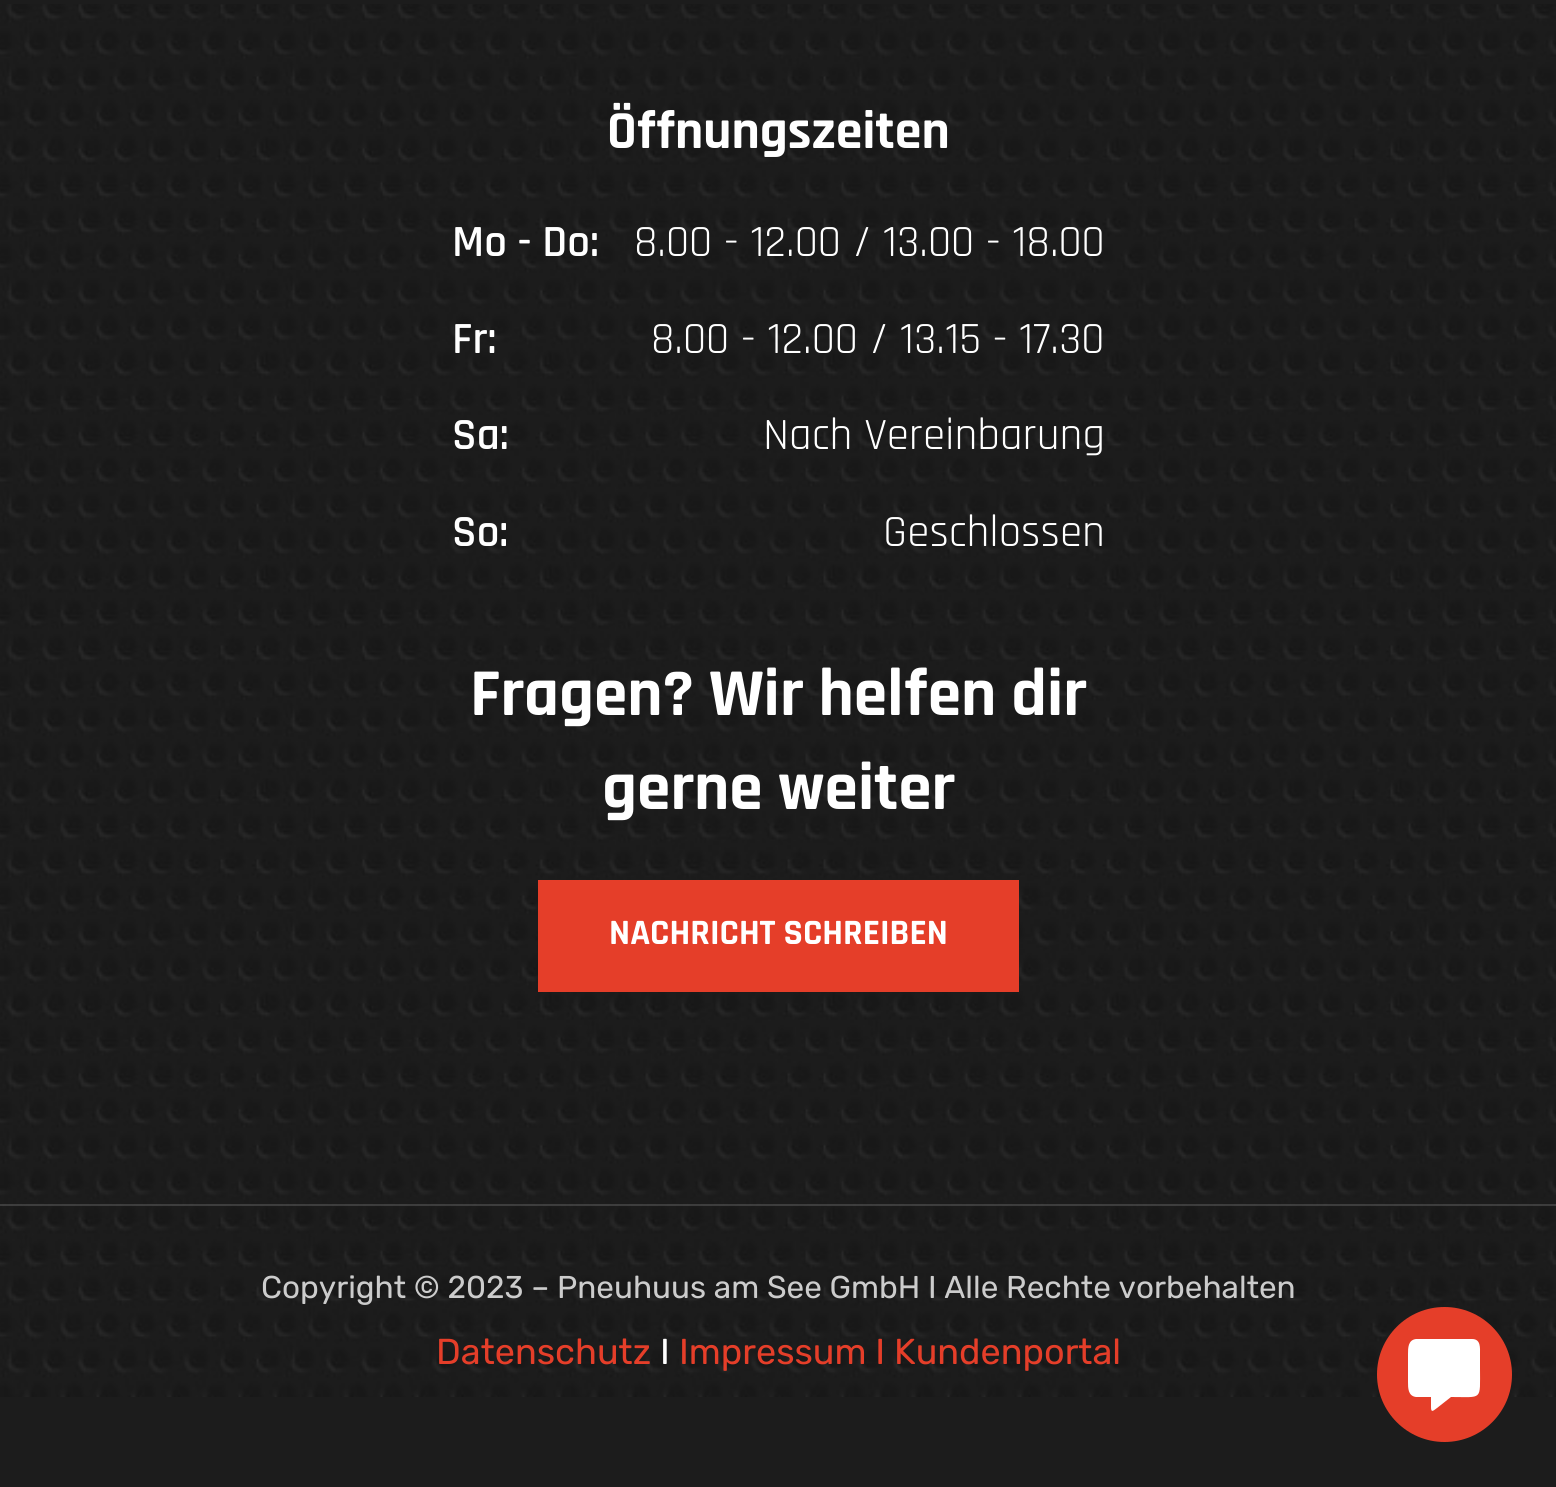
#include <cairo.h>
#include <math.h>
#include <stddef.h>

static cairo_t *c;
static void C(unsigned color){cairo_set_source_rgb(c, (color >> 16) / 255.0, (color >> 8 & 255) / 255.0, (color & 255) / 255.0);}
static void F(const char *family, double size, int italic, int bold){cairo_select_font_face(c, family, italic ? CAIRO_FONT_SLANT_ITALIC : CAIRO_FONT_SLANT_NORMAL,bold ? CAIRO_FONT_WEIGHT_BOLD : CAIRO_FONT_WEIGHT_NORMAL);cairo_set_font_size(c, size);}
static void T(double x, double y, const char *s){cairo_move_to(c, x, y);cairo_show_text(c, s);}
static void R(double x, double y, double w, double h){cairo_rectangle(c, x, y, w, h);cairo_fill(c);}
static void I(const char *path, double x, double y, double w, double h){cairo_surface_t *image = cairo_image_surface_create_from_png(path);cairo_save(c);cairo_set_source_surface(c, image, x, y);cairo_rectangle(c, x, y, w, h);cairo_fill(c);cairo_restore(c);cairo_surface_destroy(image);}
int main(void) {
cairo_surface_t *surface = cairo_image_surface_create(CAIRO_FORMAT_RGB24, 1556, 1487);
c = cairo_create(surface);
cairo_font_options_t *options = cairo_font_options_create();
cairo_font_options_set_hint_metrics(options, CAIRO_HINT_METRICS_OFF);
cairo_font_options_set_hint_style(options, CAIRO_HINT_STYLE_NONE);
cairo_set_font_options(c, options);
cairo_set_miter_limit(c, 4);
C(0x1c1c1c);
cairo_paint(c);
I("1.png",0,4,1556,1393);
F("Rajdhani",54,0,1);
C(0xffffff);
T(607,148,"Öffnungszeiten");
F("Rajdhani SemiBold",45,0,0);
T(452,256,"Mo - Do:");
F("Rajdhani",45,0,0);
T(634,256,"8.00 - 12.00 / 13.00 - 18.00");
F("Rajdhani SemiBold",45,0,0);
T(452,353,"Fr:");
F("Rajdhani",45,0,0);
T(651,353,"8.00 - 12.00 / 13.15 - 17.30");
F("Rajdhani SemiBold",45,0,0);
T(452,449,"Sa:");
F("Rajdhani",45,0,0);
T(763,449,"Nach Vereinbarung");
F("Rajdhani SemiBold",45,0,0);
T(452,546,"So:");
F("Rajdhani",45,0,0);
T(883,546,"Geschlossen");
F("Rajdhani",67.5,0,1);
T(470,715,"Fragen? Wir helfen dir");
T(602,809,"gerne weiter");
C(0xe53e29);
R(538,880,481,112);
F("Rajdhani",36,0,1);
C(0xffffff);
T(609,944,"NACHRICHT SCHREIBEN");
cairo_set_source_rgba(c,1,1,1,0.15);
R(0,1204,1556,2);
F("Rubik",31.5,0,0);
C(0xcccccc);
T(261,1298,"Copyright © 2023 – Pneuhuus am See GmbH I Alle Rechte vorbehalten");
F("Rubik",36,0,0);
C(0xe53e29);
T(436,1364,"Datenschutz");
C(0xffffff);
T(660,1364,"I");
C(0xe53e29);
T(679,1364,"Impressum I Kundenportal");
cairo_new_path(c);
cairo_arc(c,1444.5,1374.5,67.5,0,2 * M_PI);
cairo_fill(c);
C(0xffffff);
cairo_new_path(c);
cairo_move_to(c,1472,1339);
cairo_curve_to(c,1481,1339,1480,1348,1480,1354);
cairo_line_to(c,1480,1368);
cairo_curve_to(c,1480,1401,1483,1397,1451,1397);
cairo_line_to(c,1437,1408);
cairo_curve_to(c,1433,1411,1431,1413,1431,1407);
cairo_line_to(c,1431,1397);
cairo_line_to(c,1416,1397);
cairo_curve_to(c,1408,1396,1408,1388,1408,1382);
cairo_line_to(c,1408,1354);
cairo_curve_to(c,1408,1348,1408,1340,1416,1339);
cairo_close_path(c);
cairo_fill(c);
cairo_surface_write_to_png(surface, "o.png");
cairo_font_options_destroy(options);
cairo_destroy(c);
cairo_surface_destroy(surface);
return 0;
}
